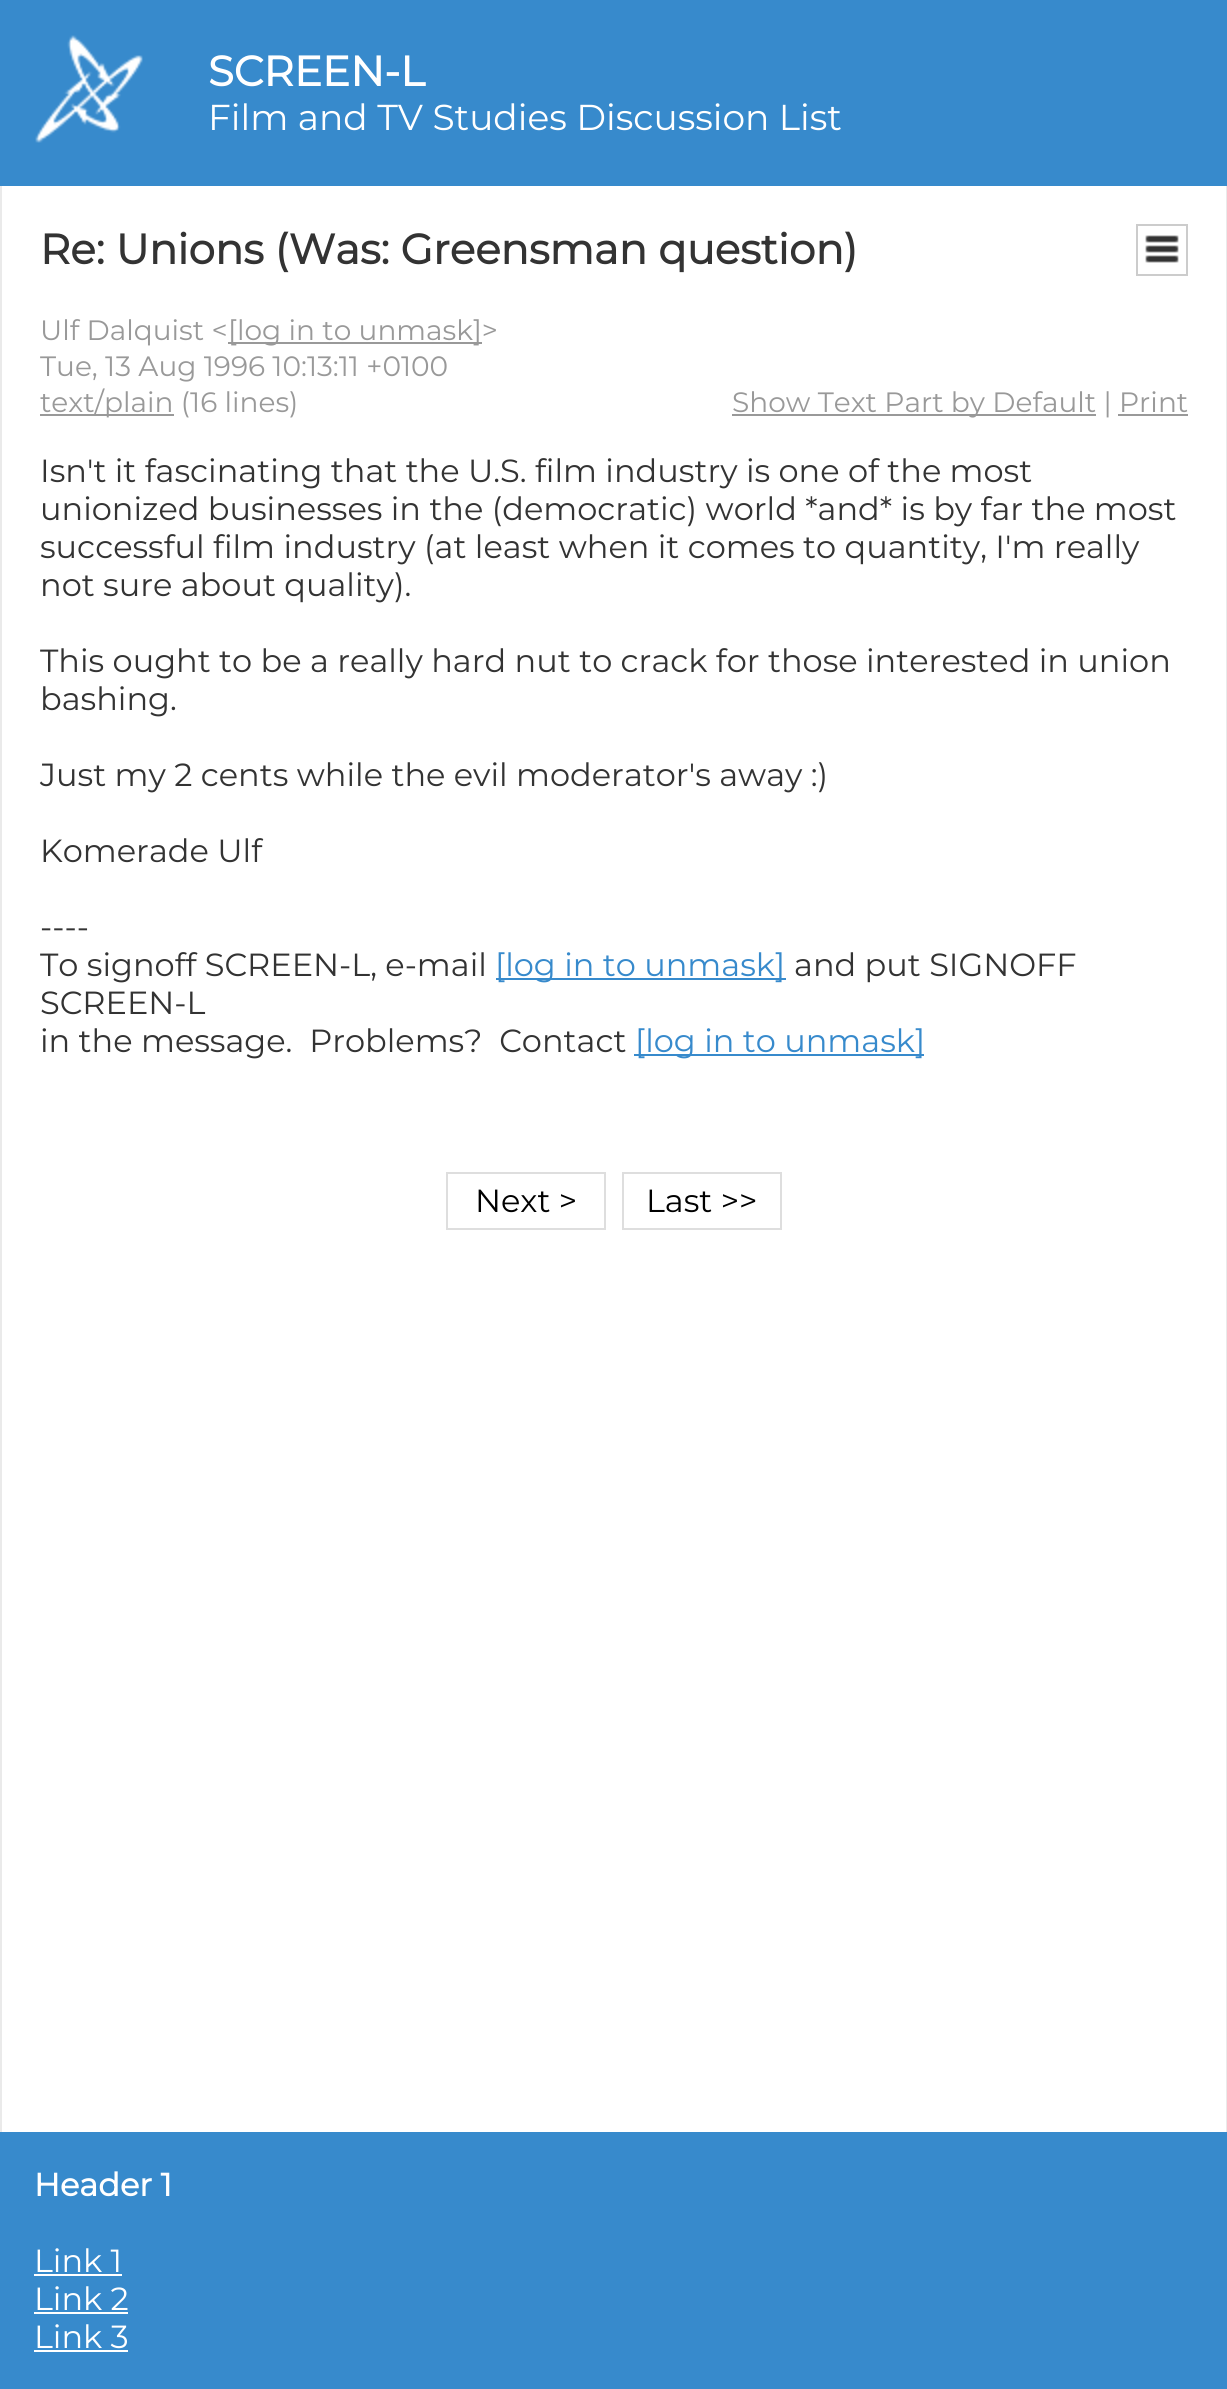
#include <cairo.h>
#include <math.h>
#include <stddef.h>

static cairo_t *c;
static void C(unsigned color){cairo_set_source_rgb(c, (color >> 16) / 255.0, (color >> 8 & 255) / 255.0, (color & 255) / 255.0);}
static void F(const char *family, double size, int italic, int bold){cairo_select_font_face(c, family, italic ? CAIRO_FONT_SLANT_ITALIC : CAIRO_FONT_SLANT_NORMAL,bold ? CAIRO_FONT_WEIGHT_BOLD : CAIRO_FONT_WEIGHT_NORMAL);cairo_set_font_size(c, size);}
static void T(double x, double y, const char *s){cairo_move_to(c, x, y);cairo_show_text(c, s);}
static void R(double x, double y, double w, double h){cairo_rectangle(c, x, y, w, h);cairo_fill(c);}
static void I(const char *path, double x, double y, double w, double h){cairo_surface_t *image = cairo_image_surface_create_from_png(path);cairo_save(c);cairo_set_source_surface(c, image, x, y);cairo_rectangle(c, x, y, w, h);cairo_fill(c);cairo_restore(c);cairo_surface_destroy(image);}
int main(void) {
cairo_surface_t *surface = cairo_image_surface_create(CAIRO_FORMAT_RGB24, 1227, 2389);
c = cairo_create(surface);
cairo_font_options_t *options = cairo_font_options_create();
cairo_font_options_set_hint_metrics(options, CAIRO_HINT_METRICS_OFF);
cairo_font_options_set_hint_style(options, CAIRO_HINT_STYLE_NONE);
cairo_set_font_options(c, options);
cairo_set_miter_limit(c, 4);
C(0x378acc);
cairo_paint(c);
I("1.png",35,35,108,108);
F("Montserrat",42,0,1);
C(0xffffff);
T(208,86,"SCREEN-L");
F("Montserrat Thin",36,0,0);
T(208,130,"Film and TV Studies Discussion List");
R(2,186,1224,1946);
C(0xeaeaea);
R(1226,186,1,1946);
R(0,186,2,1946);
cairo_rectangle(c,1137,225,50,50);
C(0xcccccc);
cairo_stroke(c);
I("2.png",1145,235,34,28);
F("Montserrat",42,0,1);
C(0x333333);
T(40,264,"Re: Unions (Was: Greensman question)");
F("Montserrat Thin",28,0,0);
C(0x999999);
T(40,340,"Ulf Dalquist <");
R(228,342,254,2);
T(228,340,"[log in to unmask]>");
T(40,376,"Tue, 13 Aug 1996 10:13:11 +0100");
R(40,414,134,2);
T(40,412,"text/plain (16 lines)");
R(732,414,364,2);
T(732,412,"Show Text Part by Default | Print");
R(1118,414,70,2);
F("Montserrat Thin",32,0,0);
C(0x333333);
T(40,482,"Isn't it fascinating that the U.S. film industry is one of the most");
T(40,520,"unionized businesses in the (democratic) world *and* is by far the most");
T(40,558,"successful film industry (at least when it comes to quantity, I'm really");
T(40,596,"not sure about quality).");
T(40,672,"This ought to be a really hard nut to crack for those interested in union");
T(40,710,"bashing.");
T(40,786,"Just my 2 cents while the evil moderator's away :)");
T(40,862,"Komerade Ulf");
T(40,938,"----");
T(40,976,"To signoff SCREEN-L, e-mail");
C(0x378acc);
R(496,978,290,2);
T(495,976,"[log in to unmask]");
C(0x333333);
T(794,976,"and put SIGNOFF");
T(40,1014,"SCREEN-L");
T(40,1052,"in the message.  Problems?  Contact");
C(0x378acc);
R(634,1054,290,2);
T(635,1052,"[log in to unmask]");
cairo_rectangle(c,447,1173,158,56);
C(0xdedede);
cairo_stroke(c);
C(0x000000);
T(475,1212,"Next >");
cairo_rectangle(c,623,1173,158,56);
C(0xdedede);
cairo_stroke(c);
C(0x000000);
T(646,1212,"Last >>");
F("Montserrat",32,0,1);
C(0xffffff);
T(34,2196,"Header 1");
F("Montserrat Thin",32,0,0);
T(34,2272,"Link 1");
R(34,2274,88,2);
T(34,2310,"Link 2");
R(34,2312,94,2);
T(34,2348,"Link 3");
R(34,2350,94,2);
cairo_surface_write_to_png(surface, "o.png");
cairo_font_options_destroy(options);
cairo_destroy(c);
cairo_surface_destroy(surface);
return 0;
}
